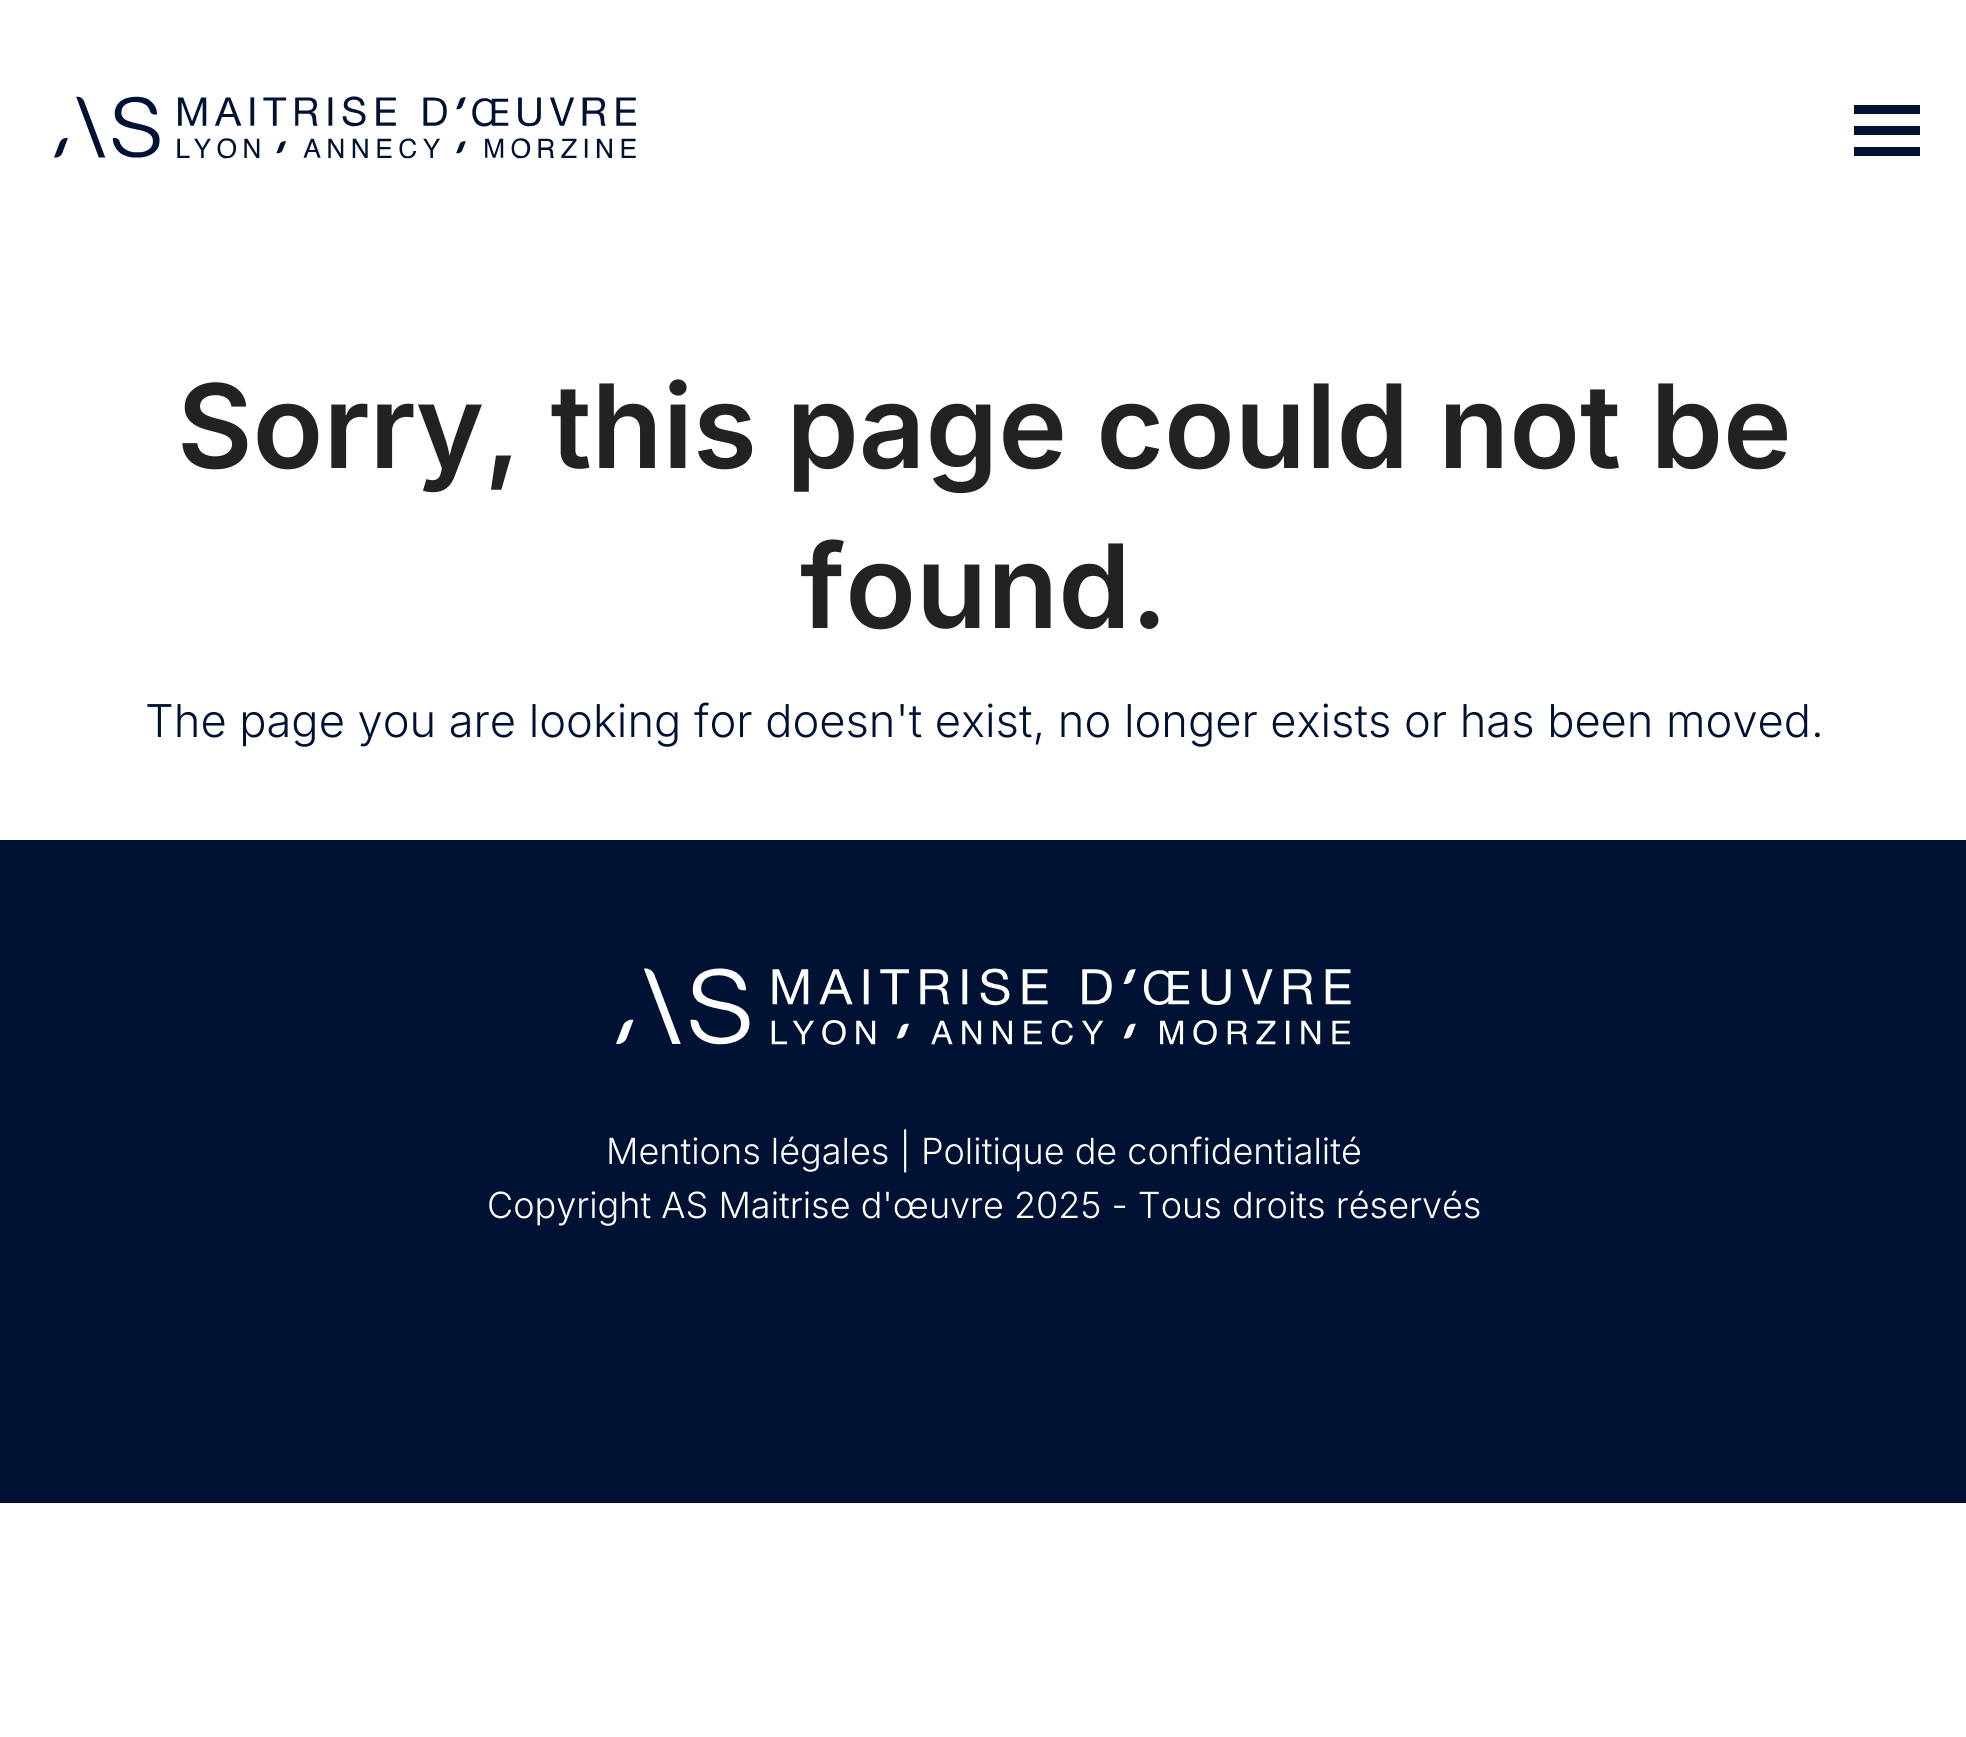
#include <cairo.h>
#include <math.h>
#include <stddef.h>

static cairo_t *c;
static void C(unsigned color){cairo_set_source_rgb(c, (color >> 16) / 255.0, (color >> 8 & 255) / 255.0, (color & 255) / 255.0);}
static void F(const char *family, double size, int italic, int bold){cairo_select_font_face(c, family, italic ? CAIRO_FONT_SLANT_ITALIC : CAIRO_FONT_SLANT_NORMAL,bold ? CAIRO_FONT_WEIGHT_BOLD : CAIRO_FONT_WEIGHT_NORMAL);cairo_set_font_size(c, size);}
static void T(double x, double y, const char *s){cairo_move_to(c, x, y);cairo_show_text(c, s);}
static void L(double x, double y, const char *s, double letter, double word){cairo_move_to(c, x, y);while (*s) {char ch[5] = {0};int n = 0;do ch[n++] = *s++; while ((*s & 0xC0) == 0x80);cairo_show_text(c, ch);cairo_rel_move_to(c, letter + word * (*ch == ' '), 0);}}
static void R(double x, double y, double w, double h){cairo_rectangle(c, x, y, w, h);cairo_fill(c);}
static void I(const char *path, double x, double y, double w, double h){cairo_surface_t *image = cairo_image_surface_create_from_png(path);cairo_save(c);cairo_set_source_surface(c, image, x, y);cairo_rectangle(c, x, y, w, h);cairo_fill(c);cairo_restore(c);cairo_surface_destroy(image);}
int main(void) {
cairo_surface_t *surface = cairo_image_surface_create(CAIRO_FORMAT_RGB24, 1966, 1737);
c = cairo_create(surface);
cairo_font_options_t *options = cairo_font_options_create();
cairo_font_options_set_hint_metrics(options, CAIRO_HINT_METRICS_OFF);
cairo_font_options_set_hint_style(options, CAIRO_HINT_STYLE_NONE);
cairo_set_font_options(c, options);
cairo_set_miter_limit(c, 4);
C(0xffffff);
cairo_paint(c);
I("1.png",54,96,582,63);
C(0x001234);
R(1854,126,66,9);
R(1854,105,66,9);
R(1854,147,66,9);
F("Inter SemiBold",116.25,0,0);
C(0x222222);
T(177,468,"Sorry, this page could not be");
T(800,628,"found.");
F("Inter Light",45.25,0,0);
C(0x001234);
L(145,737,"The page you are looking for doesn't exist, no longer exists or has been moved.",0,-.1);
R(0,840,1966,663);
I("2.png",616,968,735,77);
F("Inter Light",36,0,0);
C(0xffffff);
T(606,1164,"Mentions légales | Politique de confidentialité");
T(487,1218,"Copyright AS Maitrise d'œuvre 2025 - Tous droits réservés");
cairo_surface_write_to_png(surface, "o.png");
cairo_font_options_destroy(options);
cairo_destroy(c);
cairo_surface_destroy(surface);
return 0;
}
